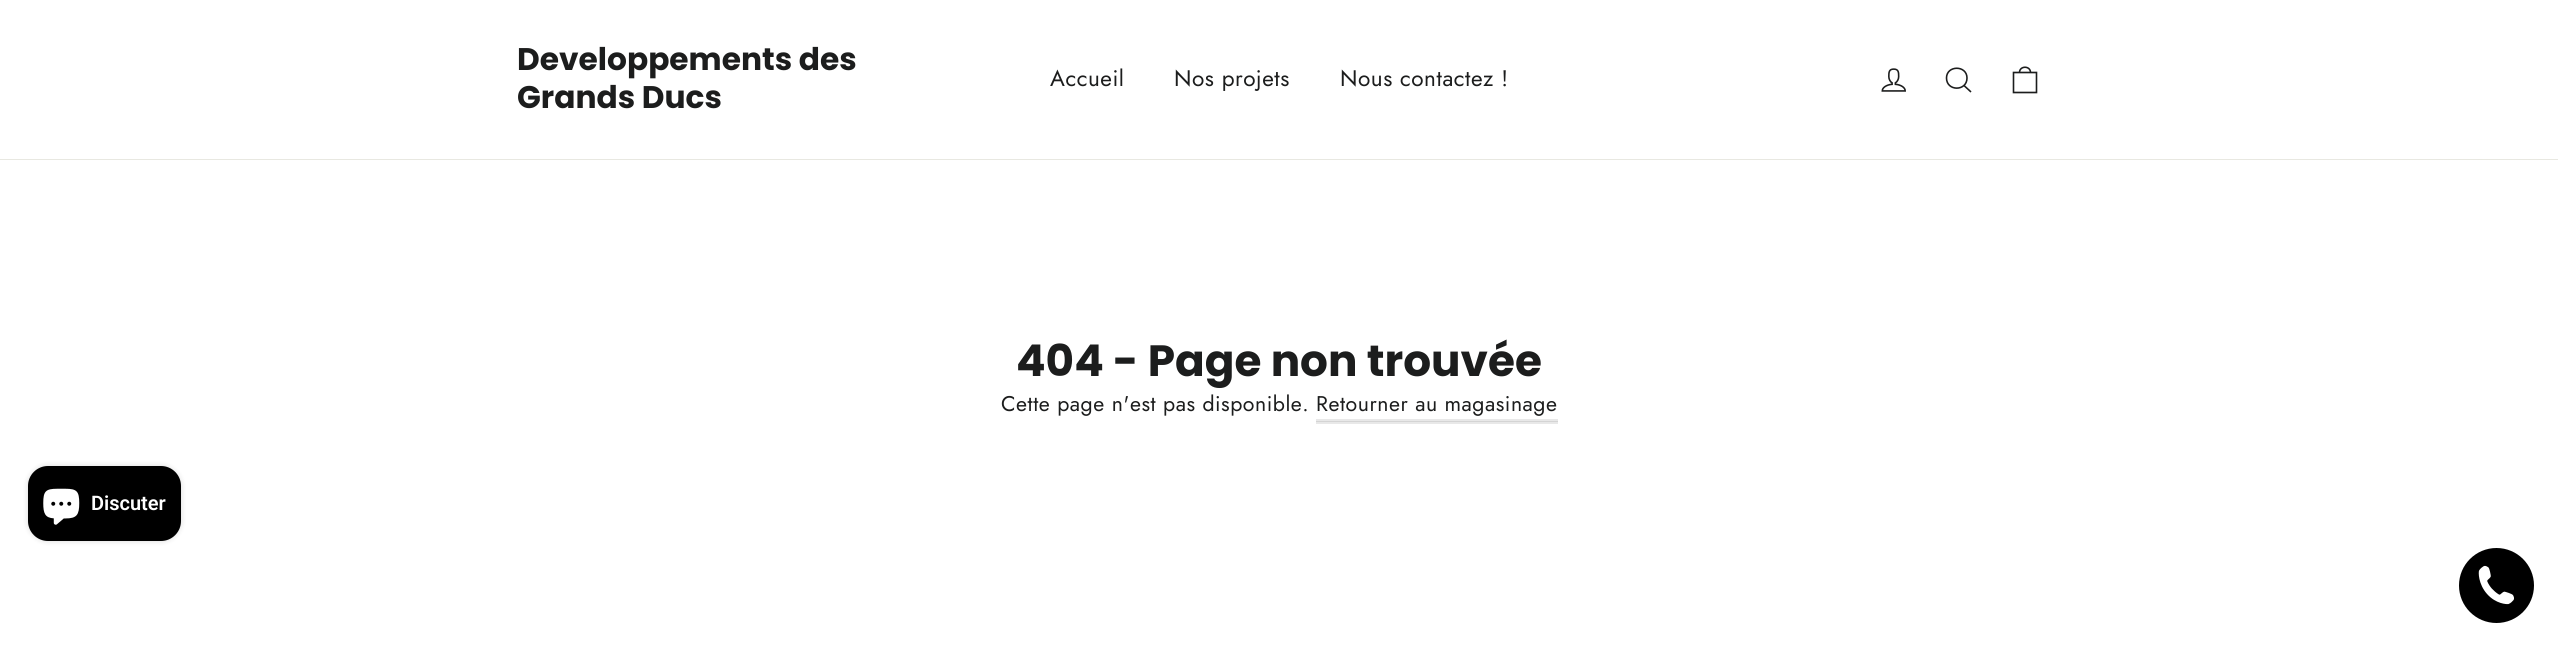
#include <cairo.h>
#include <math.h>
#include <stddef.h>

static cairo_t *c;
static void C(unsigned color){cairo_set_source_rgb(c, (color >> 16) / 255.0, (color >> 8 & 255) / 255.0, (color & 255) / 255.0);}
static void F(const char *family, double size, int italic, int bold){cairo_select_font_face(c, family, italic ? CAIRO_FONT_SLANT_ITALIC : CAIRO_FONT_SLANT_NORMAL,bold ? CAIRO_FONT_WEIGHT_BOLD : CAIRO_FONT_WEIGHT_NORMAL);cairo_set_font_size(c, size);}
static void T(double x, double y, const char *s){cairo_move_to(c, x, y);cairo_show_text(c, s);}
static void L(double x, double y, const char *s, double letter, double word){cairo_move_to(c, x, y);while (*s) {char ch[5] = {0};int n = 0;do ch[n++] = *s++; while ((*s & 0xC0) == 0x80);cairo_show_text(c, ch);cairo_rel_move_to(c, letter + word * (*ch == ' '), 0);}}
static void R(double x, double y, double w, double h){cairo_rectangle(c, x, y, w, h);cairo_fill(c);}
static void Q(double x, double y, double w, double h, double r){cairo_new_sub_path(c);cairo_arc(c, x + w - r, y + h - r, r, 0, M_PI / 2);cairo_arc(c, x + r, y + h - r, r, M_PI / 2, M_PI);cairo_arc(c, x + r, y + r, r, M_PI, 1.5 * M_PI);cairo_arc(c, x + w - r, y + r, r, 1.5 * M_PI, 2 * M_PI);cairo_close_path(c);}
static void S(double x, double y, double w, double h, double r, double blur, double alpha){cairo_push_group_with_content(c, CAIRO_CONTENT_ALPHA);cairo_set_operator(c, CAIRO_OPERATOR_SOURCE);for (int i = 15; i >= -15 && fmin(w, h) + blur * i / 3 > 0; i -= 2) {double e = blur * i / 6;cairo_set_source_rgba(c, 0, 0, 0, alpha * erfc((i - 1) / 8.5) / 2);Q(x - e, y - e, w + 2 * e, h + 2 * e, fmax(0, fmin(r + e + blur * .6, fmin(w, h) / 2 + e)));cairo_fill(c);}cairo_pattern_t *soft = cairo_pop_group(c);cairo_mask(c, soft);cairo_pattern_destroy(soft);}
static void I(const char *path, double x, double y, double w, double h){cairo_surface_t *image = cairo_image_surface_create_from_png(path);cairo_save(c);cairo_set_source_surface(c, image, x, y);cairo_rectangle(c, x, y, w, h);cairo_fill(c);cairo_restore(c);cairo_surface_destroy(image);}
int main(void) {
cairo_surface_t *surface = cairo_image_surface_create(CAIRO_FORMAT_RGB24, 2558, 647);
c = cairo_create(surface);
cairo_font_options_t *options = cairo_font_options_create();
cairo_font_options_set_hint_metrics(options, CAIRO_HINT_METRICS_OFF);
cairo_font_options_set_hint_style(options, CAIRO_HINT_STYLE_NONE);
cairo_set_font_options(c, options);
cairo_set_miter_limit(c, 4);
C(0xffffff);
cairo_paint(c);
C(0xe8e8e8);
R(1316,422,242,2);
C(0xe8e8e1);
R(0,159,2558,1);
F("Poppins",31.25,0,1);
C(0x1c1d1d);
T(517,70,"Developpements des");
T(517,108,"Grands Ducs");
F("Jost",22.5,0,0);
L(1050,86,"Accueil",.53,0);
L(1174,86,"Nos projets",.53,0);
L(1340,86,"Nous contactez !",.53,0);
I("1.png",1881,68,25,24);
cairo_new_path(c);
cairo_move_to(c,1967,78);
cairo_curve_to(c,1967,91.5,1946.5,91.5,1946.5,78);
cairo_curve_to(c,1946.5,65,1967,65,1967,78);
cairo_close_path(c);
cairo_move_to(c,1971,92);
cairo_line_to(c,1964,85.5);
cairo_set_line_width(c,1.6);
cairo_stroke(c);
cairo_new_path(c);
cairo_move_to(c,2013.5,72.5);
cairo_line_to(c,2036.5,72.5);
cairo_line_to(c,2036.5,92.5);
cairo_line_to(c,2013.5,92.5);
cairo_close_path(c);
cairo_move_to(c,2019.5,72.5);
cairo_curve_to(c,2019.5,65.5,2030.5,65.5,2030.5,72.5);
cairo_stroke(c);
F("Poppins",43.75,0,1);
T(1016,376,"404 - Page non trouvée");
F("Jost",21.25,0,0);
L(1001,411,"Cette page n'est pas disponible. Retourner au magasinage",.53,0);
C(0xe8e8e8);
R(1316,419,242,2);
C(0xd4d4d4);
R(1316,421,242,1);
C(0x000000);
S(28,466,153,75,20,3,.15);
C(0x000000);
Q(28,466,153,75,20);
cairo_fill(c);
I("2.png",43,488,37,37);
F("Roboto SemiBold",20,0,0);
C(0xffffff);
T(91,510,"Discuter");
C(0x000000);
cairo_new_path(c);
cairo_arc(c,2496.5,585.5,37.5,0,2 * M_PI);
cairo_fill(c);
I("3.png",2478,565,36,40);
cairo_surface_write_to_png(surface, "o.png");
cairo_font_options_destroy(options);
cairo_destroy(c);
cairo_surface_destroy(surface);
return 0;
}
